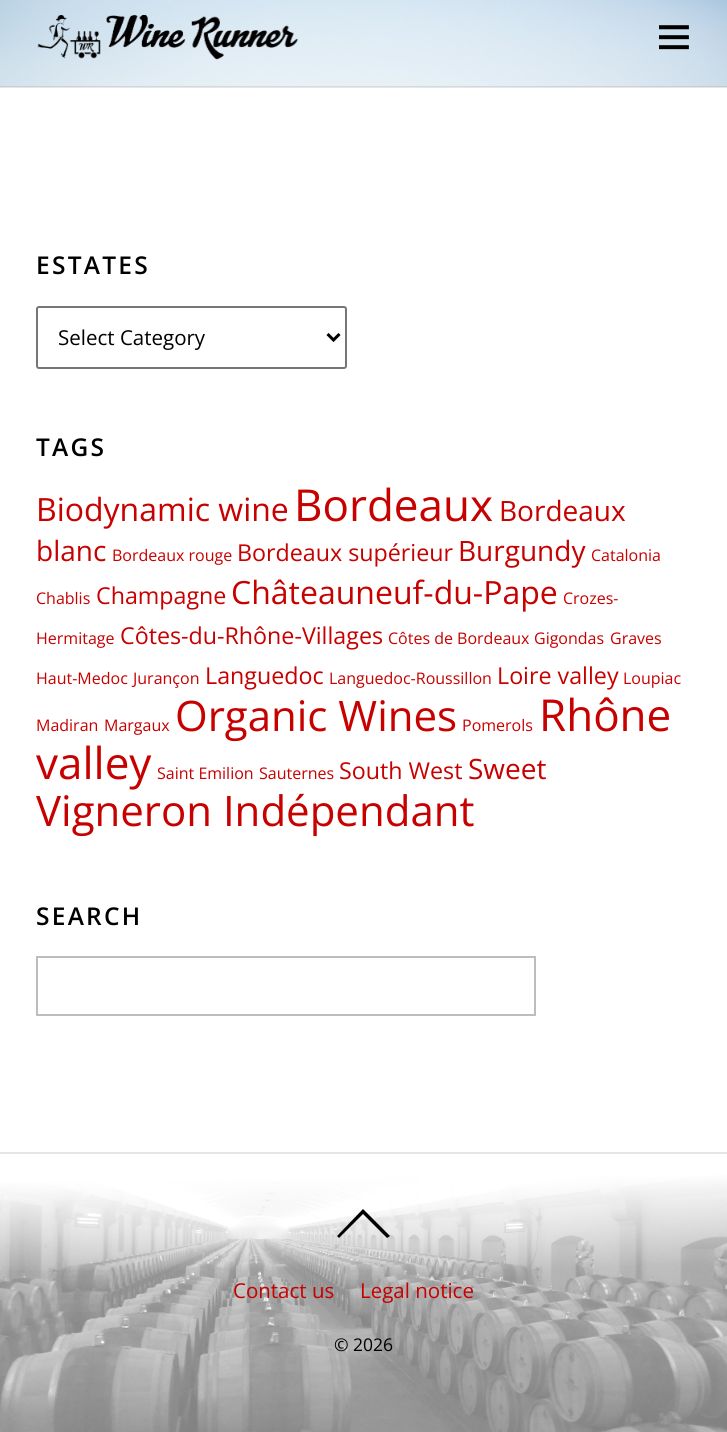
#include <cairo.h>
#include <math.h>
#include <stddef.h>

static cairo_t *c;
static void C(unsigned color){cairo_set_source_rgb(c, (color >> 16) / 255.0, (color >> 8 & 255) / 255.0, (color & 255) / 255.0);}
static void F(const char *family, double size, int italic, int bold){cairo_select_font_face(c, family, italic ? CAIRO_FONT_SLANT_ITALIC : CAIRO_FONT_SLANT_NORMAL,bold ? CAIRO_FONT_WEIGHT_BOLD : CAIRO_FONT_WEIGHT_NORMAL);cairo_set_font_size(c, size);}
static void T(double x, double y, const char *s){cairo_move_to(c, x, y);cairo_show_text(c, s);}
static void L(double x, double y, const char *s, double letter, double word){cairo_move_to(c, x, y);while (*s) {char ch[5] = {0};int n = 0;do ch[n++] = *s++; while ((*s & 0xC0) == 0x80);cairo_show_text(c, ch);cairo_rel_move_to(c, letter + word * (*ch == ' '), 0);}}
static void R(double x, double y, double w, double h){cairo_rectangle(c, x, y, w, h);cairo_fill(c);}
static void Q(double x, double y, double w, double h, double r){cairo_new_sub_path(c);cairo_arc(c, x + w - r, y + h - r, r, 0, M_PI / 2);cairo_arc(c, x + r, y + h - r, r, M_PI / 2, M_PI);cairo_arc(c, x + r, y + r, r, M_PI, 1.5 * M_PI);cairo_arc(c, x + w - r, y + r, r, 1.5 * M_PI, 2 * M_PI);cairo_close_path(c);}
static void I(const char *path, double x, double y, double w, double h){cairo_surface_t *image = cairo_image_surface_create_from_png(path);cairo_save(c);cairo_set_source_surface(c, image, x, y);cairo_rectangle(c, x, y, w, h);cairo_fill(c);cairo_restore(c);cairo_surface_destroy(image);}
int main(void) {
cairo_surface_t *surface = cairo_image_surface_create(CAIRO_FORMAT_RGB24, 727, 1432);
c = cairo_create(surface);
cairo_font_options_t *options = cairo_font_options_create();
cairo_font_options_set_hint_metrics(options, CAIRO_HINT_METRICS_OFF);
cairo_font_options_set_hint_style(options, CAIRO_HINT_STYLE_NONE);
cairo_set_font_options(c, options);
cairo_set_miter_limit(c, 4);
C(0xffffff);
cairo_paint(c);
I("1.png",0,0,727,87);
cairo_set_source_rgba(c,0,0,0,0.1);
R(0,86,727,2);
I("2.png",37,15,261,45);
I("3.png",659,25,30,25);
F("Open Sans SemiBold",24.5,0,0);
C(0x000000);
L(36,274,"ESTATES",2.25,0);
Q(37,307,309,61,2);
C(0x767676);
cairo_stroke(c);
cairo_new_path(c);
cairo_move_to(c,327.5,334);
cairo_line_to(c,333.5,340);
cairo_line_to(c,339.5,334);
C(0x000000);
cairo_set_line_width(c,3);
cairo_stroke(c);
F("Open Sans",20.5,0,0);
T(58,345,"Select Category");
F("Open Sans SemiBold",24.5,0,0);
L(36,456,"TAGS",2.25,0);
F("Open Sans",32,0,0);
C(0xc70000);
T(36,521,"Biodynamic wine");
F("Open Sans",44,0,0);
T(294,521,"Bordeaux");
F("Open Sans",28,0,0);
T(499,521,"Bordeaux");
T(36,561,"blanc");
F("Open Sans",16,0,0);
T(112,561,"Bordeaux rouge");
F("Open Sans",23.25,0,0);
T(237,561,"Bordeaux supérieur");
F("Open Sans",28,0,0);
T(458,561,"Burgundy");
F("Open Sans",16,0,0);
T(591,561,"Catalonia");
T(36,604,"Chablis");
F("Open Sans",23.25,0,0);
T(96,604,"Champagne");
F("Open Sans",32,0,0);
T(231,604,"Châteauneuf-du-Pape");
F("Open Sans",16,0,0);
T(563,604,"Crozes-");
T(36,644,"Hermitage");
F("Open Sans",23.25,0,0);
T(120,644,"Côtes-du-Rhône-Villages");
F("Open Sans",16,0,0);
T(388,644,"Côtes de Bordeaux");
T(534,644,"Gigondas");
T(610,644,"Graves");
T(36,684,"Haut-Medoc");
T(133,684,"Jurançon");
F("Open Sans",23.25,0,0);
T(205,684,"Languedoc");
F("Open Sans",16,0,0);
T(329,684,"Languedoc-Roussillon");
F("Open Sans",23.25,0,0);
T(497,684,"Loire valley");
F("Open Sans",16,0,0);
T(623,684,"Loupiac");
T(36,731,"Madiran");
T(104,731,"Margaux");
F("Open Sans",42,0,0);
T(175,731,"Organic Wines");
F("Open Sans",16,0,0);
T(462,731,"Pomerols");
F("Open Sans",44,0,0);
T(539,731,"Rhône");
T(36,779,"valley");
F("Open Sans",16,0,0);
T(157,779,"Saint Emilion");
T(259,779,"Sauternes");
F("Open Sans",23.25,0,0);
T(339,779,"South West");
F("Open Sans",28,0,0);
T(468,779,"Sweet");
F("Open Sans",42,0,0);
T(36,826,"Vigneron Indépendant");
F("Open Sans SemiBold",24.5,0,0);
C(0x000000);
L(36,925,"SEARCH",2.25,0);
cairo_rectangle(c,37,957,498,58);
C(0xbdbdbd);
cairo_set_line_width(c,2);
cairo_stroke(c);
I("4.png",0,1154,727,278);
C(0xe6e6e6);
R(0,1152,727,2);
C(0x000000);
cairo_new_path(c);
cairo_move_to(c,390,1236);
cairo_line_to(c,387,1238);
cairo_line_to(c,363,1214);
cairo_line_to(c,339,1238);
cairo_line_to(c,337,1236);
cairo_line_to(c,363,1209);
cairo_close_path(c);
cairo_fill(c);
F("Open Sans",20.5,0,0);
C(0xc70000);
T(233,1298,"Contact us");
T(360,1298,"Legal notice");
F("Open Sans",17.5,0,0);
C(0x000000);
T(334,1351,"© 2026");
cairo_surface_write_to_png(surface, "o.png");
cairo_font_options_destroy(options);
cairo_destroy(c);
cairo_surface_destroy(surface);
return 0;
}
